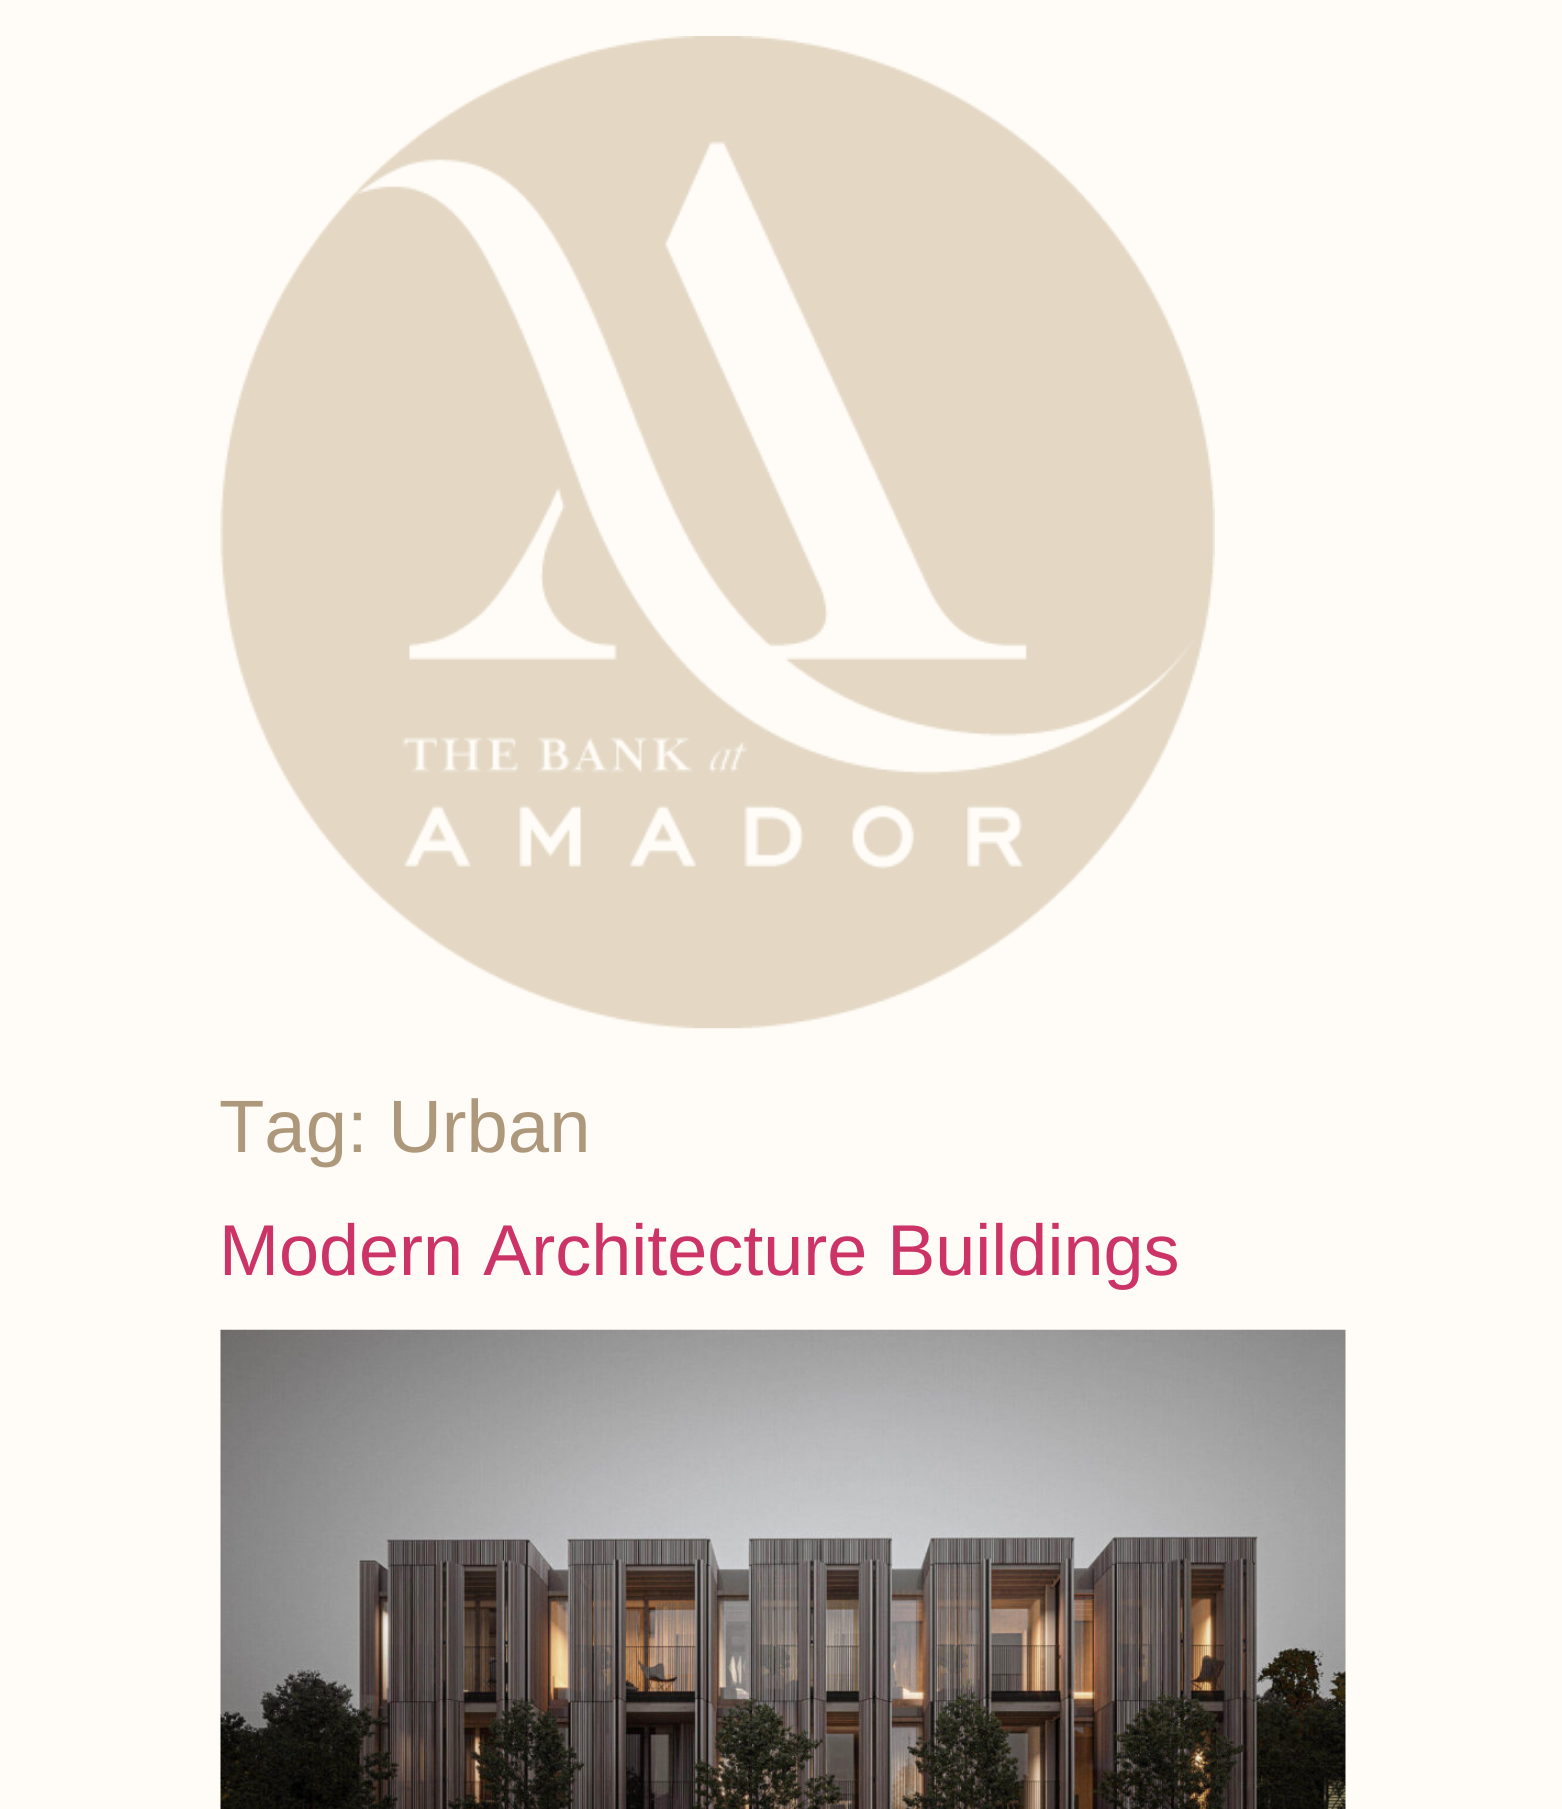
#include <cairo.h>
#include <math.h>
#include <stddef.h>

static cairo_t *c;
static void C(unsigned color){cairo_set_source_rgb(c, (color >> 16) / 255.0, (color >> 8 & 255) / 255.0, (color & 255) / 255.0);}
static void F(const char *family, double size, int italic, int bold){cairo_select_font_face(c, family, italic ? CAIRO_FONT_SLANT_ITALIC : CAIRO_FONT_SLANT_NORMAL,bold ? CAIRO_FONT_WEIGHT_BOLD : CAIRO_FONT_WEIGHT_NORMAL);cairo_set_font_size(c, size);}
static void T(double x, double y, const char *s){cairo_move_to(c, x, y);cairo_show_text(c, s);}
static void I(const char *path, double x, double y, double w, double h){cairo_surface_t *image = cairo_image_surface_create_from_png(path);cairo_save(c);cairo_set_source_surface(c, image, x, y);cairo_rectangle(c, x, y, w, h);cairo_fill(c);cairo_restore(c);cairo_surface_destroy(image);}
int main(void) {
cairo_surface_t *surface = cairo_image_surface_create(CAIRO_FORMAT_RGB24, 1562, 1809);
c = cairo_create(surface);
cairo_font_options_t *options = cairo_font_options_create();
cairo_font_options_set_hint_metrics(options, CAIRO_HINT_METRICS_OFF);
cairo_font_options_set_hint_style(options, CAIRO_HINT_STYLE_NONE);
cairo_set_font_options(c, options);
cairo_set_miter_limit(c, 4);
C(0xfffcf7);
cairo_paint(c);
I("1.png",220,36,995,993);
F("Liberation Sans",74.25,0,0);
C(0xad987b);
T(219,1152,"Tag: Urban");
F("Liberation Sans",72,0,0);
C(0xcc3366);
T(219,1275,"Modern Architecture Buildings");
I("2.png",220,1329,1126,480);
cairo_surface_write_to_png(surface, "o.png");
cairo_font_options_destroy(options);
cairo_destroy(c);
cairo_surface_destroy(surface);
return 0;
}
